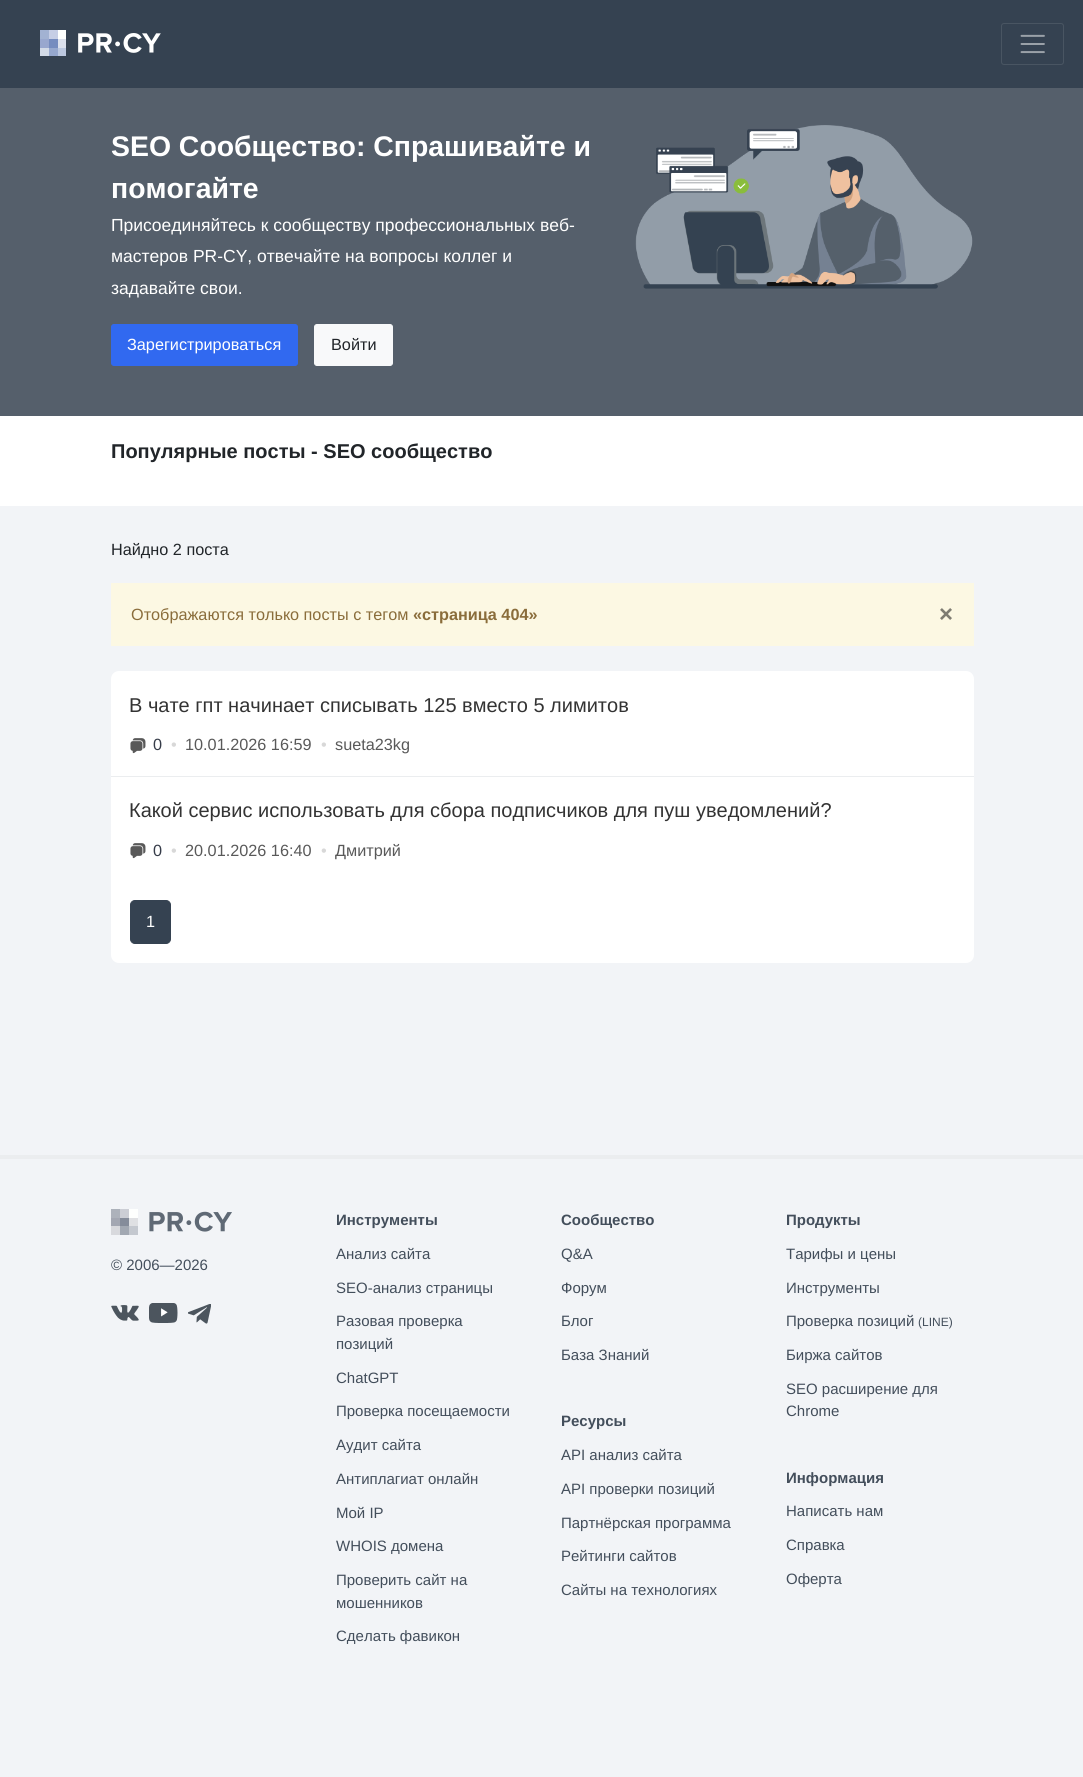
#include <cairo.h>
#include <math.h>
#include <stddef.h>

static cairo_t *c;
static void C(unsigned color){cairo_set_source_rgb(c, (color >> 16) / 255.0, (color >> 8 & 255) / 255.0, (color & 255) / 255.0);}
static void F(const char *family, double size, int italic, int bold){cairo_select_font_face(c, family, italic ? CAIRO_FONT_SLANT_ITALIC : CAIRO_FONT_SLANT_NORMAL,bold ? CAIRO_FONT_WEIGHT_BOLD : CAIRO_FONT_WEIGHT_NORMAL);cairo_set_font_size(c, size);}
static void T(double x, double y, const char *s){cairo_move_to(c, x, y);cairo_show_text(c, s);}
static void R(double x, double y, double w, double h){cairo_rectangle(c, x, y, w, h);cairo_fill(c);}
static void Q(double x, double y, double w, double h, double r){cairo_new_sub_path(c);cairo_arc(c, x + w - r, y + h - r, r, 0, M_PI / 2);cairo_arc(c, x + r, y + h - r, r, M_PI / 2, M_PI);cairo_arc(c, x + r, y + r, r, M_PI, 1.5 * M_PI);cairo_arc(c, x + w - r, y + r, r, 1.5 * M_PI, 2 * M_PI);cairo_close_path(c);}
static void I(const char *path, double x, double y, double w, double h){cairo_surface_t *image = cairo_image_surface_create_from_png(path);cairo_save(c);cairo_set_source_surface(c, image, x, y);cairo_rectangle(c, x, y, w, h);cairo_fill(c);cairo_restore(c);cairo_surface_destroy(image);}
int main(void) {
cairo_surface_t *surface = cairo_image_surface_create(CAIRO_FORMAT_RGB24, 1083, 1777);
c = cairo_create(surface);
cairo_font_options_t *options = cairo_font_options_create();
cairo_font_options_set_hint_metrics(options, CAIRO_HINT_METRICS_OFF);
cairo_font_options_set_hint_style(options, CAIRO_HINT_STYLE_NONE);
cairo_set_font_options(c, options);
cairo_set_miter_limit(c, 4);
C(0xf2f4f7);
cairo_paint(c);
C(0x354251);
R(0,0,1083,88);
I("1.png",40,30,121,26);
Q(1001.5,23.5,62,41,2.5);
C(0x495562);
cairo_set_line_width(c,1);
cairo_stroke(c);
I("2.png",1020,34,25,20);
C(0x555f6b);
R(0,88,1083,328);
F("Liberation Sans",28.4,0,1);
C(0xffffff);
T(111,156,"SEO Сообщество: Спрашивайте и");
T(111,198,"помогайте");
F("Liberation Sans",17.5,0,0);
T(111,231,"Присоединяйтесь к сообществу профессиональных веб-");
T(111,262,"мастеров PR-CY, отвечайте на вопросы коллег и");
T(111,294,"задавайте свои.");
C(0x3169f0);
Q(111.5,324.5,186,41,2.5);
cairo_fill_preserve(c);
cairo_stroke(c);
F("Liberation Sans",16.25,0,0);
C(0xffffff);
T(127,350,"Зарегистрироваться");
C(0xf8f9fa);
Q(314.5,324.5,78,41,2.5);
cairo_fill_preserve(c);
cairo_stroke(c);
C(0x212529);
T(331,350,"Войти");
I("3.png",635,125,338,164);
C(0xffffff);
R(0,416,1083,90);
F("Liberation Sans",20,0,1);
C(0x212529);
T(111,458,"Популярные посты - SEO сообщество");
F("Liberation Sans",16.25,0,0);
T(111,555,"Найдно 2 поста");
C(0xfcf8e3);
R(111,583,863,63);
C(0x8a6d3b);
T(131,620,"Отображаются только посты с тегом");
F("Liberation Sans",16.25,0,1);
T(413,620,"«страница 404»");
F("Liberation Sans",24,0,1);
C(0x7e7c72);
T(939,622,"×");
C(0xffffff);
Q(111,671,863,292,8);
cairo_fill(c);
F("Liberation Sans",20,0,0);
C(0x333333);
T(129,712,"В чате гпт начинает списывать 125 вместо 5 лимитов");
I("4.png",130,738,16,16);
F("Liberation Sans",16.25,0,0);
C(0x363c49);
T(153,750,"0");
C(0xd8d8d8);
T(171,750,"•");
C(0x595959);
T(185,750,"10.01.2026 16:59");
C(0xd8d8d8);
T(321,750,"•");
C(0x595959);
T(335,750,"sueta23kg");
C(0xebedef);
R(111,776,863,1);
F("Liberation Sans",20,0,0);
C(0x333333);
T(129,817,"Какой сервис использовать для сбора подписчиков для пуш уведомлений?");
I("4.png",130,843,16,16);
F("Liberation Sans",16.25,0,0);
C(0x363c49);
T(153,856,"0");
C(0xd8d8d8);
T(171,856,"•");
C(0x595959);
T(185,856,"20.01.2026 16:40");
C(0xd8d8d8);
T(321,856,"•");
C(0x595959);
T(335,856,"Дмитрий");
C(0x354251);
Q(130.5,900.5,40,43,4.5);
cairo_fill_preserve(c);
cairo_stroke(c);
C(0xffffff);
T(146,927,"1");
C(0xebedef);
R(0,1155,1083,4);
I("5.png",111,1209,121,26);
F("Liberation Sans",15,0,0);
C(0x434e5b);
T(111,1270,"© 2006—2026");
I("6.png",111,1305,28,16);
I("7.png",149,1303,29,20);
I("8.png",188,1304,23,20);
F("Liberation Sans",15,0,1);
T(336,1225,"Инструменты");
F("Liberation Sans",15,0,0);
T(336,1259,"Анализ сайта");
T(336,1293,"SEO-анализ страницы");
T(336,1326,"Разовая проверка");
T(336,1349,"позиций");
T(336,1383,"ChatGPT");
T(336,1416,"Проверка посещаемости");
T(336,1450,"Аудит сайта");
T(336,1484,"Антиплагиат онлайн");
T(336,1518,"Мой IP");
T(336,1551,"WHOIS домена");
T(336,1585,"Проверить сайт на");
T(336,1608,"мошенников");
T(336,1641,"Сделать фавикон");
F("Liberation Sans",15,0,1);
T(561,1225,"Сообщество");
F("Liberation Sans",15,0,0);
T(561,1259,"Q&A");
T(561,1293,"Форум");
T(561,1326,"Блог");
T(561,1360,"База Знаний");
F("Liberation Sans",15,0,1);
T(561,1426,"Ресурсы");
F("Liberation Sans",15,0,0);
T(561,1460,"API анализ сайта");
T(561,1494,"API проверки позиций");
T(561,1528,"Партнёрская программа");
T(561,1561,"Рейтинги сайтов");
T(561,1595,"Сайты на технологиях");
F("Liberation Sans",15,0,1);
T(786,1225,"Продукты");
F("Liberation Sans",15,0,0);
T(786,1259,"Тарифы и цены");
T(786,1293,"Инструменты");
T(786,1326,"Проверка позиций");
F("Liberation Sans",12,0,0);
T(918,1326,"(LINE)");
F("Liberation Sans",15,0,0);
T(786,1360,"Биржа сайтов");
T(786,1394,"SEO расширение для");
T(786,1416,"Chrome");
F("Liberation Sans",15,0,1);
T(786,1483,"Информация");
F("Liberation Sans",15,0,0);
T(786,1516,"Написать нам");
T(786,1550,"Справка");
T(786,1584,"Оферта");
cairo_surface_write_to_png(surface, "o.png");
cairo_font_options_destroy(options);
cairo_destroy(c);
cairo_surface_destroy(surface);
return 0;
}
